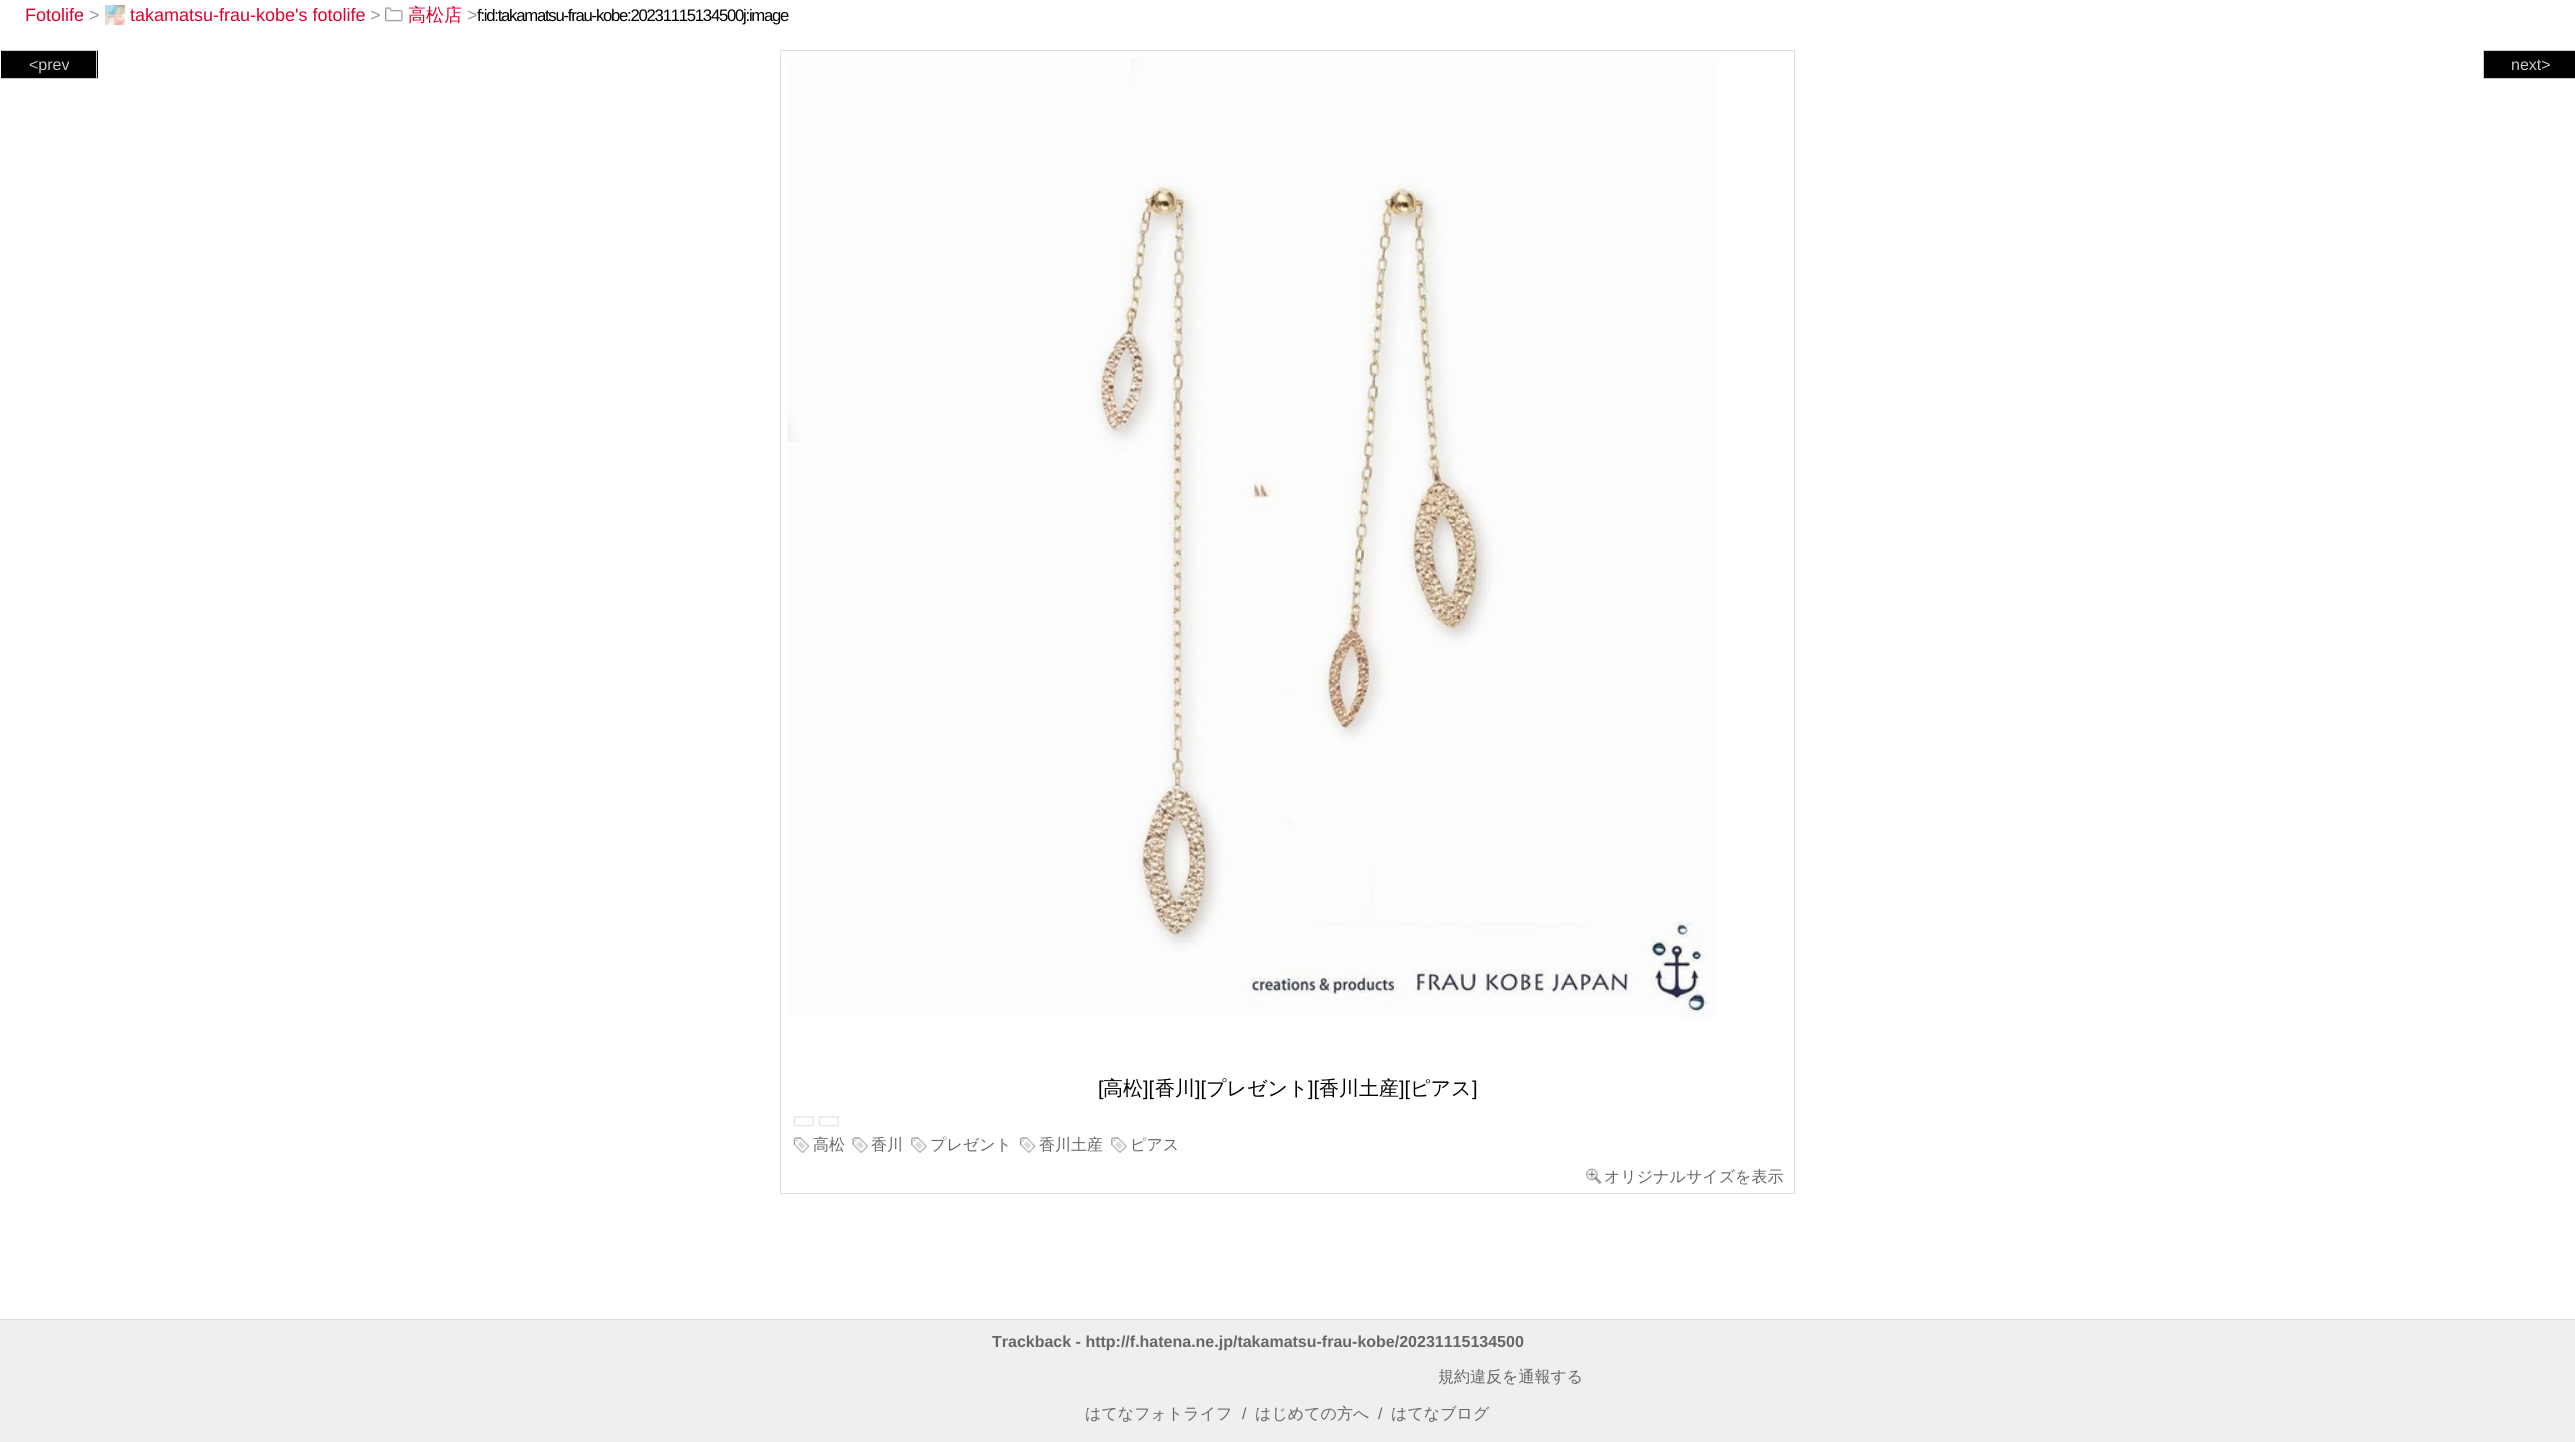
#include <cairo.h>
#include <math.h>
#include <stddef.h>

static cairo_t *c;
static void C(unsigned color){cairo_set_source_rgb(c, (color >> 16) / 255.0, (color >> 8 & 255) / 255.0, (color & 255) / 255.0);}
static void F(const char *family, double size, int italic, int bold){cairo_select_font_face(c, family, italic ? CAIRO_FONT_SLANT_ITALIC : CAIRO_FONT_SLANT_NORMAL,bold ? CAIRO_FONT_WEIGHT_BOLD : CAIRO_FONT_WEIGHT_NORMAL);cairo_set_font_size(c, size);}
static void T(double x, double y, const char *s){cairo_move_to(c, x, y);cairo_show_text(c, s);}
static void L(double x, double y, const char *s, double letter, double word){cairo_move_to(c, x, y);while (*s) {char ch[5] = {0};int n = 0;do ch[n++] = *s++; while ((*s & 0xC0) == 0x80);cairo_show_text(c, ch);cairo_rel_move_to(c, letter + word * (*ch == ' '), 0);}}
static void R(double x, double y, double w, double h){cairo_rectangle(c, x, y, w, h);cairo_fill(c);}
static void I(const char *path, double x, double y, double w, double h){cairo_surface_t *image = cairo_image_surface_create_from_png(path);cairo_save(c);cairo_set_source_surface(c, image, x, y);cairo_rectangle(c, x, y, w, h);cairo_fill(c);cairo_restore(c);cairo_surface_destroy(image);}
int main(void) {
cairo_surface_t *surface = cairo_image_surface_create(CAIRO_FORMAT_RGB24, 2575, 1442);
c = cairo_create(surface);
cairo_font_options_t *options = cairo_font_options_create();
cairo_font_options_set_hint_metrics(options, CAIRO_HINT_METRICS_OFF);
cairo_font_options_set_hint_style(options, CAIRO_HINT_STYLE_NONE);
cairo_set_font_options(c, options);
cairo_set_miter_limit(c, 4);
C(0xefefef);
cairo_paint(c);
C(0xffffff);
R(0,0,2575,1319);
F("Liberation Sans",18,0,0);
C(0xde002f);
T(25,21,"Fotolife");
C(0x999999);
T(89,21,">");
I("1.png",105,5,20,20);
C(0xde002f);
T(130,21,"takamatsu-frau-kobe's fotolife");
C(0x999999);
T(370,21,">");
I("2.png",385,7,18,15);
F("WenQuanYi Zen Hei Medium",18,0,0);
C(0xde002f);
T(408,21,"高松店");
F("Liberation Sans",18,0,0);
C(0x999999);
T(467,21,">");
F("Liberation Sans",16.7,0,0);
C(0x000000);
L(477,21,"f:id:takamatsu-frau-kobe:20231115134500j:image",-1.25,0);
C(0xdedede);
R(0,1319,2575,1);
C(0x000000);
R(1,51,97,27);
C(0xcccccc);
R(1,50,97,1);
R(96,50,1,29);
R(1,78,97,1);
F("Liberation Sans",16,0,0);
T(29,70,"<prev");
C(0x000000);
R(2484,51,91,27);
C(0xcccccc);
R(2483,50,92,1);
R(2483,78,92,1);
R(2483,50,1,29);
T(2511,70,"next>");
cairo_rectangle(c,780.5,50.5,1014,1143);
C(0xdedede);
cairo_set_line_width(c,1);
cairo_stroke(c);
I("3.png",787,57,929,961);
F("Liberation Sans",20,0,0);
C(0x000000);
T(1098,1095,"[");
F("WenQuanYi Zen Hei Medium",20,0,0);
T(1103,1095,"高松");
F("Liberation Sans",20,0,0);
T(1143,1095,"][");
F("WenQuanYi Zen Hei Medium",20,0,0);
T(1155,1095,"香川");
F("Liberation Sans",20,0,0);
T(1195,1095,"][");
F("WenQuanYi Zen Hei Medium",20,0,0);
T(1206,1095,"プレゼント");
F("Liberation Sans",20,0,0);
T(1308,1095,"][");
F("WenQuanYi Zen Hei Medium",20,0,0);
T(1319,1095,"香川土産");
F("Liberation Sans",20,0,0);
T(1399,1095,"][");
F("WenQuanYi Zen Hei Medium",20,0,0);
T(1410,1095,"ピアス");
F("Liberation Sans",20,0,0);
T(1472,1095,"]");
I("4.png",793,1116,21,11);
I("5.png",818,1116,21,11);
I("6.png",793,1137,16,16);
F("WenQuanYi Zen Hei Medium",16,0,0);
C(0x666666);
T(813,1150,"高松");
I("7.png",852,1137,16,16);
T(871,1150,"香川");
I("8.png",911,1137,16,16);
T(930,1150,"プレゼント");
I("9.png",1020,1137,15,16);
T(1039,1150,"香川土産");
I("8.png",1111,1137,16,16);
T(1130,1150,"ピアス");
I("10.png",1586,1168,16,16);
T(1604,1182,"オリジナルサイズを表示");
F("Liberation Sans",16,0,1);
T(992,1347,"Trackback - http://f.hatena.ne.jp/takamatsu-frau-kobe/20231115134500");
F("WenQuanYi Zen Hei Medium",16,0,0);
T(1438,1382,"規約違反を通報する");
T(1085,1419,"はてなフォトライフ");
F("Liberation Sans",16,0,0);
T(1242,1419,"/");
F("WenQuanYi Zen Hei Medium",16,0,0);
T(1255,1419,"はじめての方へ");
F("Liberation Sans",16,0,0);
T(1378,1419,"/");
F("WenQuanYi Zen Hei Medium",16,0,0);
T(1391,1419,"はてなブログ");
cairo_surface_write_to_png(surface, "o.png");
cairo_font_options_destroy(options);
cairo_destroy(c);
cairo_surface_destroy(surface);
return 0;
}
